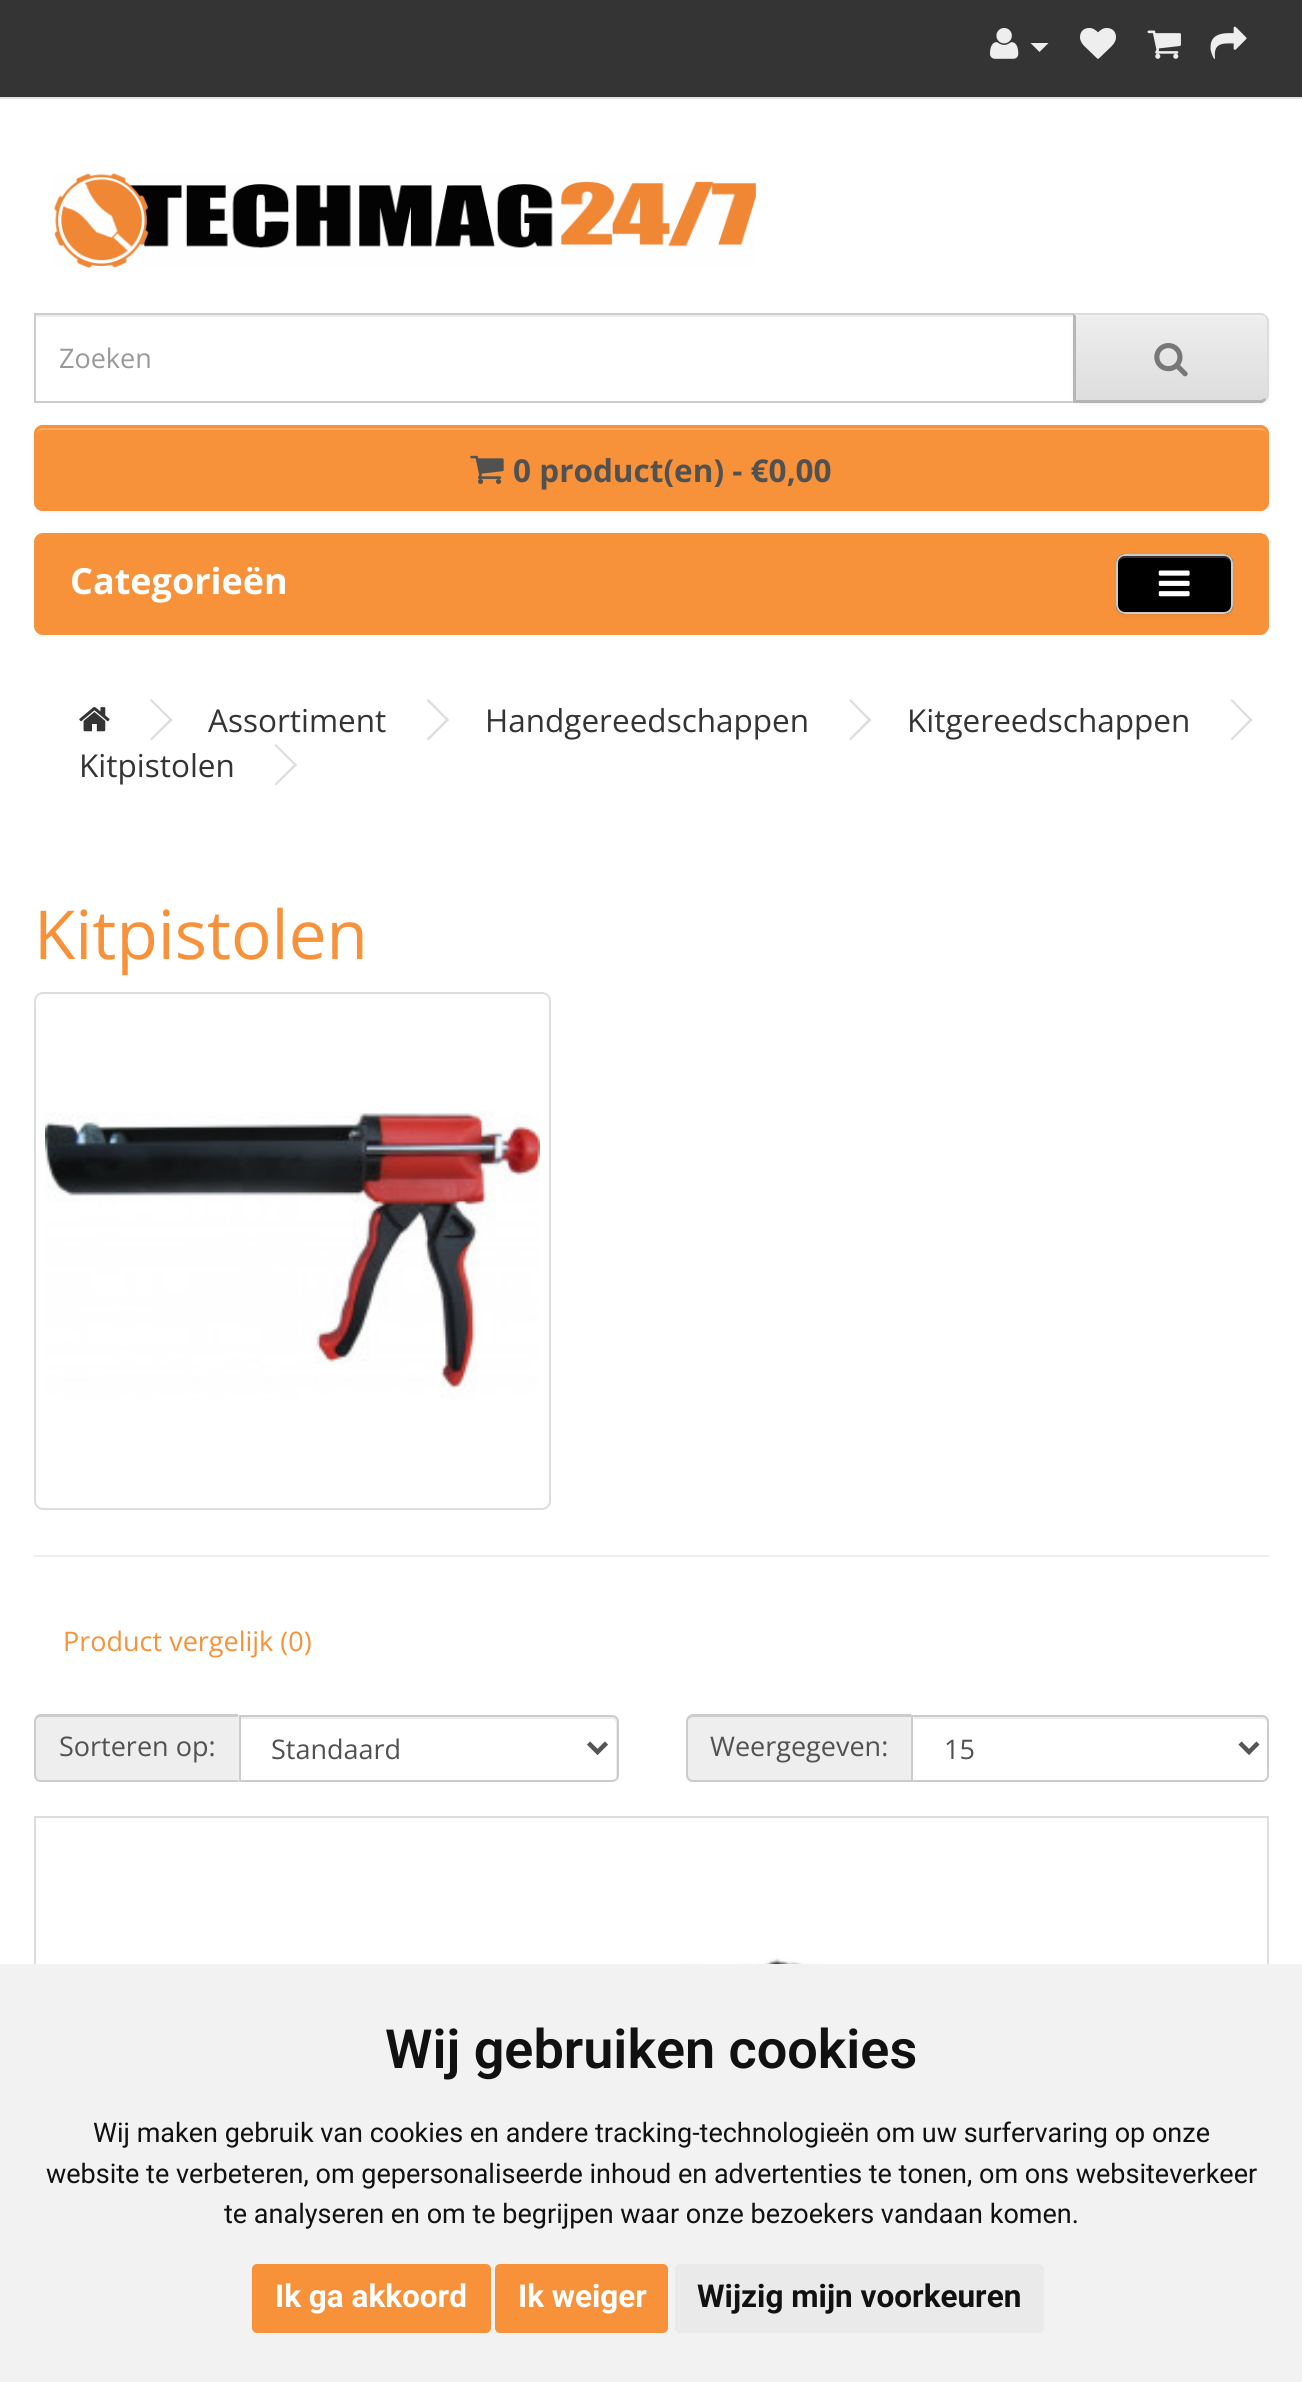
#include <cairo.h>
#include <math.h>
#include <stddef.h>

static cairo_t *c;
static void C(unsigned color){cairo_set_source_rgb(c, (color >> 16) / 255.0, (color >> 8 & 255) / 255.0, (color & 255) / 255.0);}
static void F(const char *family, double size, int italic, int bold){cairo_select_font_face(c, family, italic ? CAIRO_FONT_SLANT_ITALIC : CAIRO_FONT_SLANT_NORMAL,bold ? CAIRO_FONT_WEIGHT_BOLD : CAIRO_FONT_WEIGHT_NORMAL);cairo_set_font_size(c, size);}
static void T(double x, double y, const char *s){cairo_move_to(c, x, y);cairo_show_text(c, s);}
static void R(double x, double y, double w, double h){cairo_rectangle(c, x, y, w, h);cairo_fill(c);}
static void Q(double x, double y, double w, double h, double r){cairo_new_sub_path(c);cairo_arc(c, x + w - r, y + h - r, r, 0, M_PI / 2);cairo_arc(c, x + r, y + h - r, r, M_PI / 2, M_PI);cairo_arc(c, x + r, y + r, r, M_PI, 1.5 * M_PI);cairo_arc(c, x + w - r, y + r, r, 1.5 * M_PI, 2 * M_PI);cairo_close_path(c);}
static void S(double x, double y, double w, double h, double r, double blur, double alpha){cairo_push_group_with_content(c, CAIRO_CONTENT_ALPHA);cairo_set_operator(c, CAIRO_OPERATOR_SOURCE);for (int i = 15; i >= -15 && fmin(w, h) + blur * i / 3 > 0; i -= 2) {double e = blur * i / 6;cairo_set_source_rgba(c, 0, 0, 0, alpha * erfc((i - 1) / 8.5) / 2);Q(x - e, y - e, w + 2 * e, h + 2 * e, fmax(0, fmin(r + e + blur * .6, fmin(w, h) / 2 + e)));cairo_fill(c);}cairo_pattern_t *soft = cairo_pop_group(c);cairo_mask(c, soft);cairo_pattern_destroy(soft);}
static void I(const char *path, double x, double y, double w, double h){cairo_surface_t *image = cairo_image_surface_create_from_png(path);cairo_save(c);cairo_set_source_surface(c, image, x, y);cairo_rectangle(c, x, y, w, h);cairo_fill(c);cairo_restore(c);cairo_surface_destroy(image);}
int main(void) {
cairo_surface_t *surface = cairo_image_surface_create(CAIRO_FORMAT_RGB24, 1302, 2382);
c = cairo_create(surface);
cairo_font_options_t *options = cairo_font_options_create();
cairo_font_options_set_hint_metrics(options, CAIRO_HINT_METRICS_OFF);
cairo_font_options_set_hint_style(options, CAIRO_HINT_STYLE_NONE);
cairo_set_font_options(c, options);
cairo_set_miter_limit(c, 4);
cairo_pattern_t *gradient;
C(0xffffff);
cairo_paint(c);
C(0x343434);
R(0,0,1302,97);
C(0xe2e2e2);
R(0,97,1302,2);
I("1.png",990,28,29,31);
C(0xeeeeee);
cairo_new_path(c);
cairo_move_to(c,1030.5,43);
cairo_line_to(c,1048.5,43);
cairo_line_to(c,1039.5,52);
cairo_close_path(c);
cairo_fill(c);
I("2.png",1080,28,36,31);
I("3.png",1147,30,34,29);
I("4.png",1210,26,37,33);
I("5.png",54,173,702,95);
C(0xececec);
R(36,315,1037,2);
cairo_rectangle(c,35,314,1040,88);
C(0xcccccc);
cairo_stroke(c);
F("Open Sans",27,0,0);
C(0x999999);
T(59,368,"Zoeken");
C(0x000000);
S(1073,315,196,90,9,2,.05);
C(0xe7e7e7);
cairo_new_path(c);
cairo_move_to(c,1073,313);
cairo_line_to(c,1260,313);
cairo_curve_to(c,1265,313,1269,317,1269,322);
cairo_line_to(c,1269,394);
cairo_curve_to(c,1269,399,1265,403,1260,403);
cairo_line_to(c,1073,403);
cairo_close_path(c);
cairo_fill(c);
cairo_save(c);
cairo_new_path(c);
cairo_move_to(c,1073,313);
cairo_line_to(c,1260,313);
cairo_curve_to(c,1265,313,1269,317,1269,322);
cairo_line_to(c,1269,394);
cairo_curve_to(c,1269,399,1265,403,1260,403);
cairo_line_to(c,1073,403);
cairo_close_path(c);
cairo_clip(c);
gradient = cairo_pattern_create_linear(1171,315,1171,401);
cairo_pattern_add_color_stop_rgba(gradient,0,0.933,0.933,0.933,1);
cairo_pattern_add_color_stop_rgba(gradient,1,0.867,0.867,0.867,1);
cairo_set_source(c,gradient);
cairo_pattern_destroy(gradient);
R(1075,315,194,86);
cairo_restore(c);
C(0xf1f1f1);
cairo_new_path(c);
cairo_move_to(c,1076,317);
cairo_line_to(c,1260,317);
cairo_curve_to(c,1264,317,1267,320,1267,324);
cairo_line_to(c,1267,322);
cairo_curve_to(c,1267,318,1264,315,1260,315);
cairo_line_to(c,1076,315);
cairo_close_path(c);
cairo_fill(c);
C(0xdddddd);
cairo_new_path(c);
cairo_move_to(c,1076,315);
cairo_line_to(c,1260,315);
cairo_curve_to(c,1262,315,1264,316,1265,317);
cairo_line_to(c,1266,316);
cairo_curve_to(c,1265,314,1262,313,1260,313);
cairo_line_to(c,1074,313);
cairo_line_to(c,1076,316);
cairo_close_path(c);
cairo_fill(c);
cairo_new_path(c);
cairo_move_to(c,1266,316);
cairo_curve_to(c,1268,317,1269,319,1269,322);
cairo_line_to(c,1269,394);
cairo_curve_to(c,1269,396,1268,399,1266,400);
cairo_line_to(c,1265,398);
cairo_curve_to(c,1266,397,1267,396,1267,394);
cairo_line_to(c,1267,322);
cairo_curve_to(c,1267,320,1266,318,1265,317);
cairo_close_path(c);
cairo_fill(c);
C(0xb3b3b3);
cairo_new_path(c);
cairo_move_to(c,1266,400);
cairo_curve_to(c,1265,401,1264,402,1262,403);
cairo_line_to(c,1073,403);
cairo_line_to(c,1076,400);
cairo_line_to(c,1261,400);
cairo_line_to(c,1265,398);
cairo_close_path(c);
cairo_fill(c);
C(0xb7b7b7);
cairo_new_path(c);
cairo_move_to(c,1073,403);
cairo_line_to(c,1076,400);
cairo_line_to(c,1076,316);
cairo_line_to(c,1073,313);
cairo_close_path(c);
cairo_fill(c);
I("6.png",1154,343,34,34);
C(0x000000);
S(34,428,1235,85,9,2,.05);
C(0xf7923a);
Q(34,425,1235,86,9);
cairo_fill(c);
C(0xf9a861);
cairo_new_path(c);
cairo_move_to(c,43,430);
cairo_line_to(c,1260,430);
cairo_curve_to(c,1264,430,1267,433,1267,436);
cairo_curve_to(c,1267,432,1265,428,1260,428);
cairo_line_to(c,43,428);
cairo_curve_to(c,38,428,36,432,36,436);
cairo_curve_to(c,36,433,39,430,43,430);
cairo_close_path(c);
cairo_fill(c);
Q(35,426,1233,84,8);
C(0xf7923a);
cairo_stroke(c);
I("7.png",470,455,34,29);
F("Open Sans",31.5,0,1);
C(0x515151);
T(513,482,"0 product(en) - €0,00");
C(0xf7923a);
Q(34,533,1235,102,9);
cairo_fill(c);
F("Open Sans",36,0,1);
C(0xffffff);
T(70,594,"Categorieën");
C(0x000000);
S(1116,556,117,61,9,2,.05);
C(0x000000);
Q(1116,554,117,60,9);
cairo_fill(c);
C(0x333333);
cairo_new_path(c);
cairo_move_to(c,1125,558);
cairo_line_to(c,1224,558);
cairo_curve_to(c,1228,558,1231,561,1231,565);
cairo_curve_to(c,1231,552,1217,556,1208,556);
cairo_line_to(c,1142,556);
cairo_curve_to(c,1132,556,1118,552,1118,565);
cairo_curve_to(c,1118,561,1121,558,1125,558);
cairo_close_path(c);
cairo_fill(c);
Q(1117,555,115,58,8);
C(0xcccccc);
cairo_stroke(c);
I("8.png",1158,570,32,27);
I("9.png",79,707,31,25);
C(0xdddddd);
cairo_new_path(c);
cairo_move_to(c,150,700.5);
cairo_line_to(c,151.5,699);
cairo_line_to(c,172.5,720);
cairo_line_to(c,171,721.5);
cairo_close_path(c);
cairo_fill(c);
cairo_new_path(c);
cairo_move_to(c,150,739);
cairo_line_to(c,171,718);
cairo_line_to(c,172.5,720);
cairo_line_to(c,151.5,740.5);
cairo_close_path(c);
cairo_fill(c);
F("Open Sans",31.5,0,0);
C(0x343434);
T(208,732,"Assortiment");
C(0xdddddd);
cairo_new_path(c);
cairo_move_to(c,426.5,700.5);
cairo_line_to(c,428.5,699);
cairo_line_to(c,449,720);
cairo_line_to(c,447.5,721.5);
cairo_close_path(c);
cairo_fill(c);
cairo_new_path(c);
cairo_move_to(c,426.5,739);
cairo_line_to(c,447.5,718);
cairo_line_to(c,449,720);
cairo_line_to(c,428.5,740.5);
cairo_close_path(c);
cairo_fill(c);
C(0x343434);
T(485,732,"Handgereedschappen");
C(0xdddddd);
cairo_new_path(c);
cairo_move_to(c,849,700.5);
cairo_line_to(c,850.5,699);
cairo_line_to(c,871.5,720);
cairo_line_to(c,869.5,721.5);
cairo_close_path(c);
cairo_fill(c);
cairo_new_path(c);
cairo_move_to(c,849,739);
cairo_line_to(c,869.5,718);
cairo_line_to(c,871.5,720);
cairo_line_to(c,850.5,740.5);
cairo_close_path(c);
cairo_fill(c);
C(0x343434);
T(907,732,"Kitgereedschappen");
C(0xdddddd);
cairo_new_path(c);
cairo_move_to(c,1230.5,700.5);
cairo_line_to(c,1232,699);
cairo_line_to(c,1252.5,720);
cairo_line_to(c,1251,721.5);
cairo_close_path(c);
cairo_fill(c);
cairo_new_path(c);
cairo_move_to(c,1230.5,739);
cairo_line_to(c,1251,718);
cairo_line_to(c,1252.5,720);
cairo_line_to(c,1232,740.5);
cairo_close_path(c);
cairo_fill(c);
C(0x343434);
T(79,777,"Kitpistolen");
C(0xdddddd);
cairo_new_path(c);
cairo_move_to(c,274.5,745.5);
cairo_line_to(c,276,744);
cairo_line_to(c,297,765);
cairo_line_to(c,295.5,766.5);
cairo_close_path(c);
cairo_fill(c);
cairo_new_path(c);
cairo_move_to(c,274.5,784);
cairo_line_to(c,295.5,763);
cairo_line_to(c,297,765);
cairo_line_to(c,276,785.5);
cairo_close_path(c);
cairo_fill(c);
F("Open Sans",67.5,0,0);
C(0xf7923a);
T(34,959,"Kitpistolen");
Q(35,993,515,516,8);
C(0xdddddd);
cairo_stroke(c);
I("10.png",45,1111,495,289);
C(0xeeeeee);
R(34,1555,1235,2);
F("Open Sans",27,0,0);
C(0xf7923a);
T(63,1651,"Product vergelijk (0)");
C(0xeeeeee);
cairo_new_path(c);
cairo_move_to(c,41,1715);
cairo_line_to(c,239,1715);
cairo_line_to(c,239,1782);
cairo_line_to(c,41,1782);
cairo_curve_to(c,37,1782,34,1779,34,1775);
cairo_line_to(c,34,1722);
cairo_curve_to(c,34,1718,37,1715,41,1715);
cairo_close_path(c);
cairo_fill(c);
C(0xcccccc);
cairo_set_fill_rule(c,CAIRO_FILL_RULE_EVEN_ODD);
cairo_new_path(c);
cairo_move_to(c,40,1714);
cairo_line_to(c,238,1714);
cairo_line_to(c,238,1782);
cairo_line_to(c,40,1782);
cairo_curve_to(c,37,1782,34,1779,34,1775);
cairo_line_to(c,34,1721);
cairo_curve_to(c,34,1718,37,1714,40,1714);
cairo_close_path(c);
cairo_move_to(c,40,1717);
cairo_line_to(c,238,1717);
cairo_line_to(c,238,1780);
cairo_line_to(c,40,1780);
cairo_curve_to(c,38,1780,36,1778,36,1775);
cairo_line_to(c,36,1721);
cairo_curve_to(c,36,1719,38,1717,40,1717);
cairo_close_path(c);
cairo_fill(c);
C(0x515151);
T(59,1756,"Sorteren op:");
C(0xececec);
cairo_set_fill_rule(c,CAIRO_FILL_RULE_WINDING);
cairo_new_path(c);
cairo_move_to(c,241,1719);
cairo_line_to(c,612,1719);
cairo_curve_to(c,614,1719,616,1721,616,1724);
cairo_line_to(c,616,1778);
cairo_curve_to(c,617,1777,617,1776,617,1775);
cairo_line_to(c,617,1722);
cairo_curve_to(c,617,1719,615,1717,612,1717);
cairo_line_to(c,241,1717);
cairo_close_path(c);
cairo_fill(c);
cairo_new_path(c);
cairo_move_to(c,240,1716);
cairo_line_to(c,612,1716);
cairo_curve_to(c,615.5,1716,618,1718.5,618,1722);
cairo_line_to(c,618,1775);
cairo_curve_to(c,618,1778.5,615.5,1781,612,1781);
cairo_line_to(c,240,1781);
cairo_close_path(c);
C(0xcccccc);
cairo_stroke(c);
cairo_new_path(c);
cairo_move_to(c,588.5,1743);
cairo_line_to(c,597.5,1752);
cairo_line_to(c,606.5,1743);
C(0x555555);
cairo_set_line_width(c,4.5);
cairo_stroke(c);
C(0x515151);
T(271,1759,"Standaard");
C(0xeeeeee);
cairo_new_path(c);
cairo_move_to(c,693,1715);
cairo_line_to(c,911,1715);
cairo_line_to(c,911,1782);
cairo_line_to(c,693,1782);
cairo_curve_to(c,689,1782,686,1779,686,1775);
cairo_line_to(c,686,1722);
cairo_curve_to(c,686,1718,689,1715,693,1715);
cairo_close_path(c);
cairo_fill(c);
C(0xcccccc);
cairo_set_fill_rule(c,CAIRO_FILL_RULE_EVEN_ODD);
cairo_new_path(c);
cairo_move_to(c,693,1714);
cairo_line_to(c,911,1714);
cairo_line_to(c,911,1782);
cairo_line_to(c,693,1782);
cairo_curve_to(c,689,1782,686,1779,686,1775);
cairo_line_to(c,686,1721);
cairo_curve_to(c,686,1718,689,1714,693,1714);
cairo_close_path(c);
cairo_move_to(c,693,1717);
cairo_line_to(c,911,1717);
cairo_line_to(c,911,1780);
cairo_line_to(c,693,1780);
cairo_curve_to(c,691,1780,688,1778,688,1775);
cairo_line_to(c,688,1721);
cairo_curve_to(c,688,1719,691,1717,693,1717);
cairo_close_path(c);
cairo_fill(c);
C(0x515151);
T(710,1756,"Weergegeven:");
C(0xececec);
cairo_set_fill_rule(c,CAIRO_FILL_RULE_WINDING);
cairo_new_path(c);
cairo_move_to(c,914,1719);
cairo_line_to(c,1262,1719);
cairo_curve_to(c,1265,1719,1267,1721,1267,1724);
cairo_curve_to(c,1267,1721,1266,1717,1262,1717);
cairo_line_to(c,914,1717);
cairo_close_path(c);
cairo_fill(c);
cairo_new_path(c);
cairo_move_to(c,912,1716);
cairo_line_to(c,1262,1716);
cairo_curve_to(c,1265.5,1716,1268,1718.5,1268,1722);
cairo_line_to(c,1268,1775);
cairo_curve_to(c,1268,1778.5,1265.5,1781,1262,1781);
cairo_line_to(c,912,1781);
cairo_close_path(c);
C(0xcccccc);
cairo_set_line_width(c,2);
cairo_stroke(c);
cairo_new_path(c);
cairo_move_to(c,1240,1743);
cairo_line_to(c,1249,1752);
cairo_line_to(c,1258,1743);
C(0x555555);
cairo_set_line_width(c,4.5);
cairo_stroke(c);
C(0x515151);
T(944,1759,"15");
cairo_rectangle(c,35,1817,1233,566);
C(0xdddddd);
cairo_set_line_width(c,2);
cairo_stroke(c);
I("11.png",536,1957,290,7);
C(0xf2f2f2);
R(0,1964,1302,418);
F("Roboto SemiBold",54,0,0);
C(0x111111);
T(385,2068,"Wij gebruiken cookies");
F("Roboto",27,0,0);
T(93,2142,"Wij maken gebruik van cookies en andere tracking-technologieën om uw surfervaring op onze");
T(46,2183,"website te verbeteren, om gepersonaliseerde inhoud en advertenties te tonen, om ons websiteverkeer");
T(224,2223,"te analyseren en om te begrijpen waar onze bezoekers vandaan komen.");
C(0xf7923a);
Q(252,2264,239,69,5);
cairo_fill(c);
F("Roboto",31.5,0,1);
C(0xffffff);
T(275,2307,"Ik ga akkoord");
C(0xf7923a);
Q(495,2264,173,69,5);
cairo_fill(c);
C(0xffffff);
T(518,2307,"Ik weiger");
C(0xeaeaea);
Q(675,2264,369,69,5);
cairo_fill(c);
C(0x111111);
T(697,2307,"Wijzig mijn voorkeuren");
cairo_surface_write_to_png(surface, "o.png");
cairo_font_options_destroy(options);
cairo_destroy(c);
cairo_surface_destroy(surface);
return 0;
}
